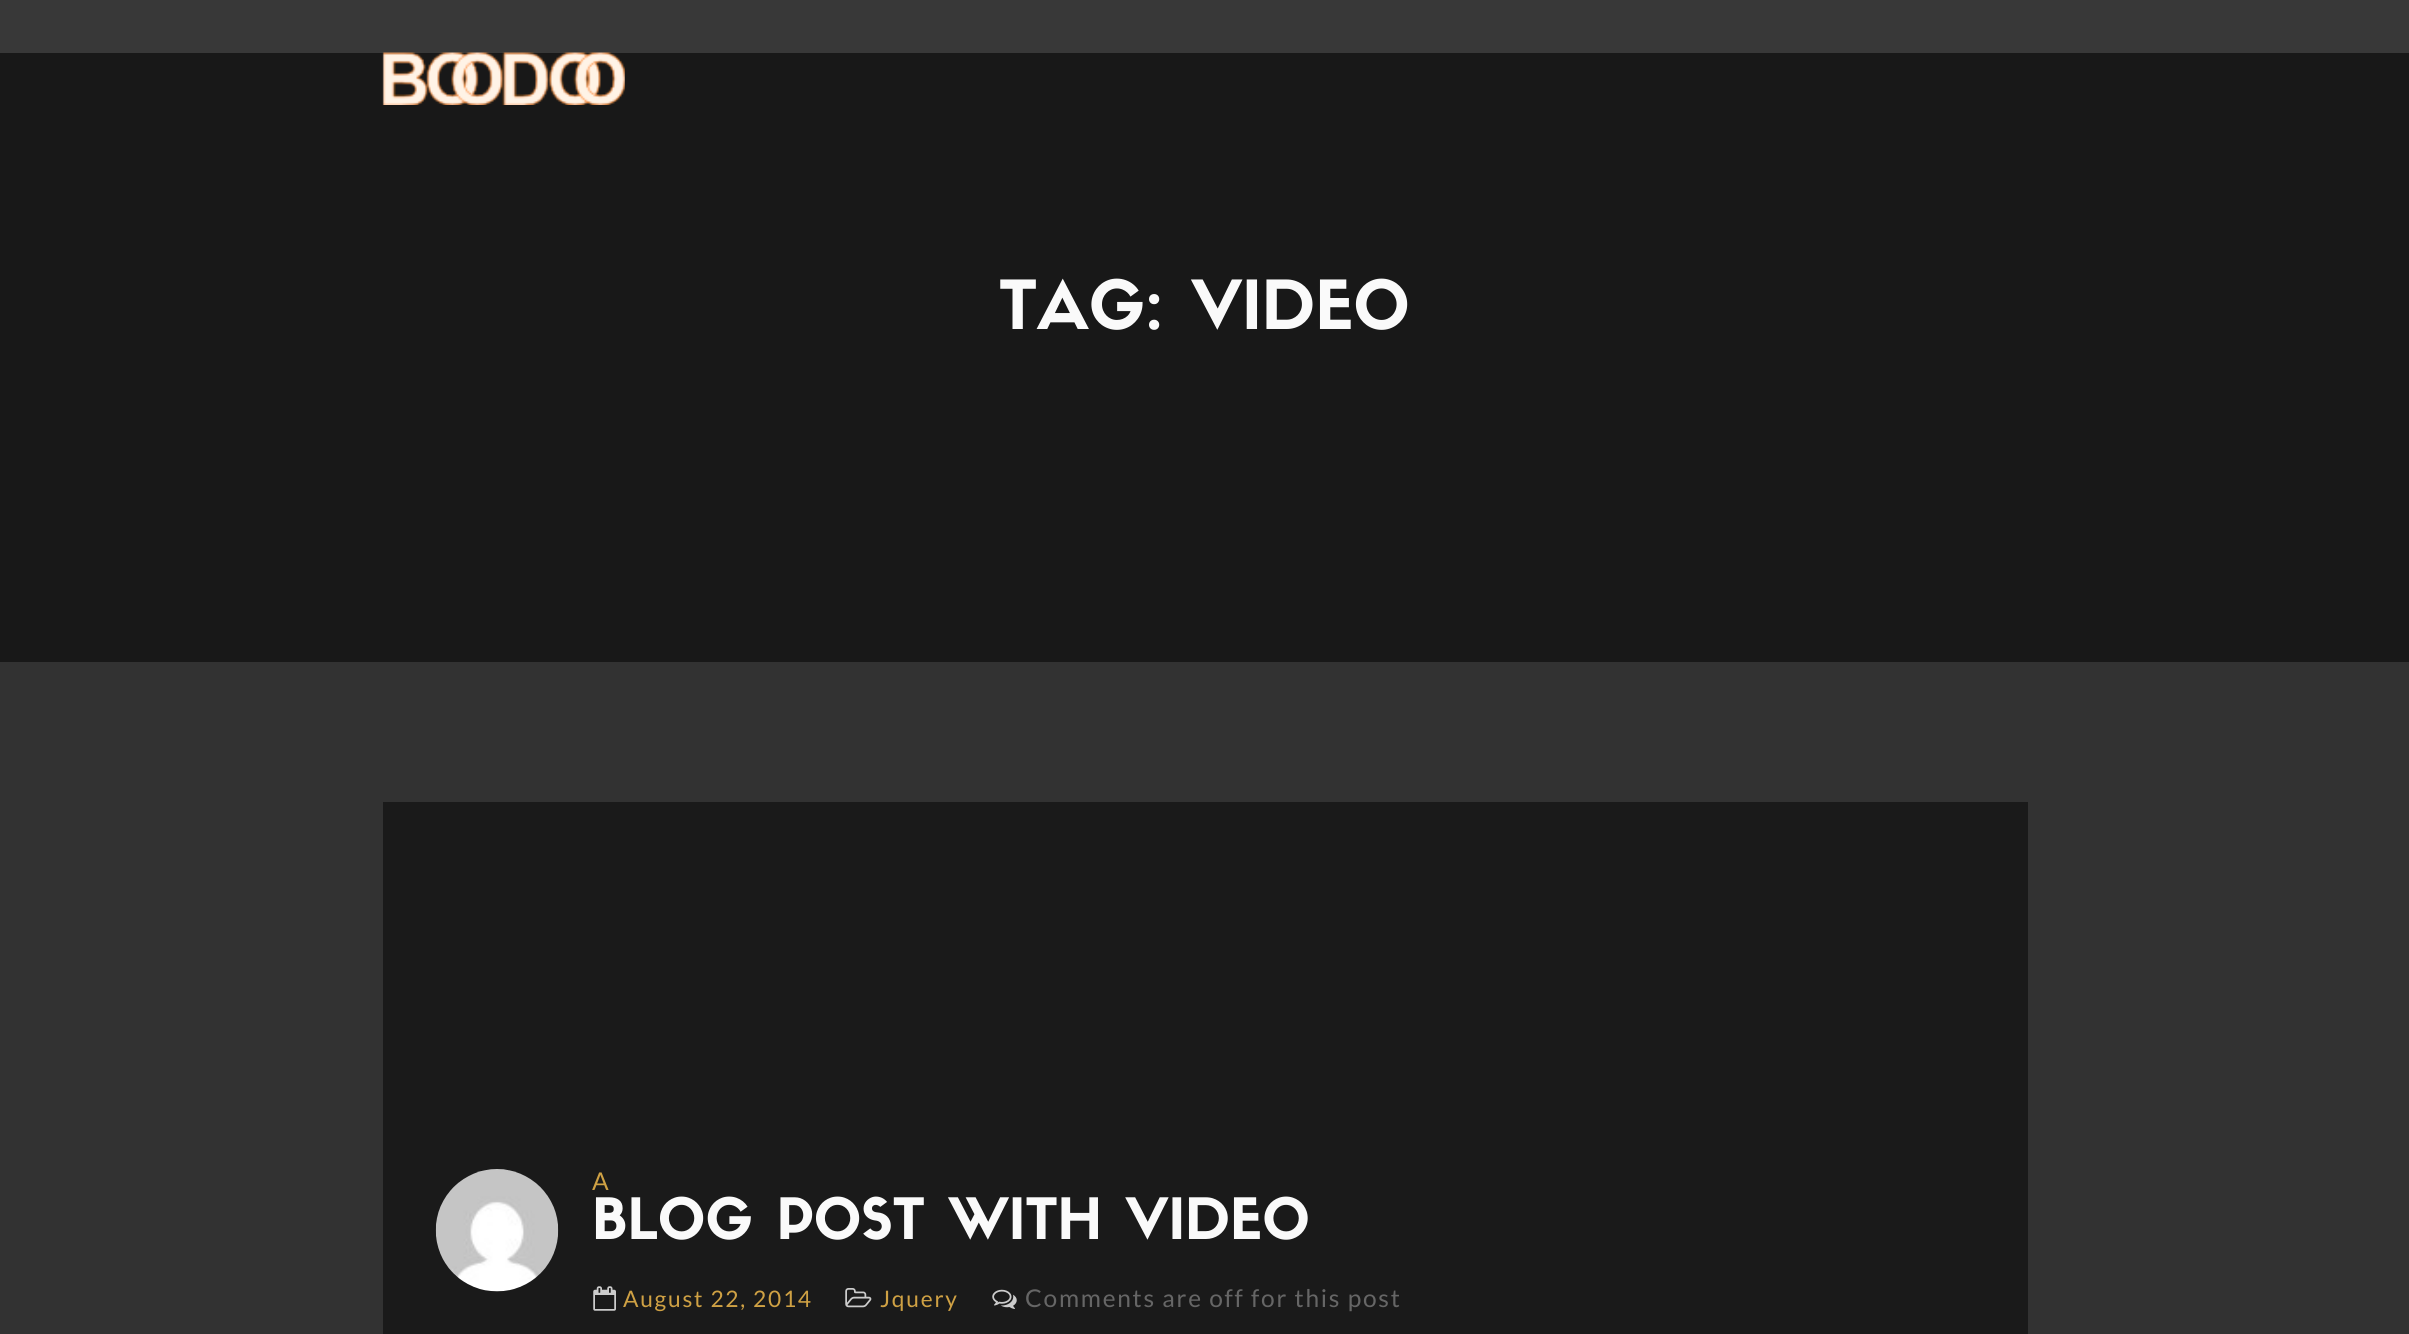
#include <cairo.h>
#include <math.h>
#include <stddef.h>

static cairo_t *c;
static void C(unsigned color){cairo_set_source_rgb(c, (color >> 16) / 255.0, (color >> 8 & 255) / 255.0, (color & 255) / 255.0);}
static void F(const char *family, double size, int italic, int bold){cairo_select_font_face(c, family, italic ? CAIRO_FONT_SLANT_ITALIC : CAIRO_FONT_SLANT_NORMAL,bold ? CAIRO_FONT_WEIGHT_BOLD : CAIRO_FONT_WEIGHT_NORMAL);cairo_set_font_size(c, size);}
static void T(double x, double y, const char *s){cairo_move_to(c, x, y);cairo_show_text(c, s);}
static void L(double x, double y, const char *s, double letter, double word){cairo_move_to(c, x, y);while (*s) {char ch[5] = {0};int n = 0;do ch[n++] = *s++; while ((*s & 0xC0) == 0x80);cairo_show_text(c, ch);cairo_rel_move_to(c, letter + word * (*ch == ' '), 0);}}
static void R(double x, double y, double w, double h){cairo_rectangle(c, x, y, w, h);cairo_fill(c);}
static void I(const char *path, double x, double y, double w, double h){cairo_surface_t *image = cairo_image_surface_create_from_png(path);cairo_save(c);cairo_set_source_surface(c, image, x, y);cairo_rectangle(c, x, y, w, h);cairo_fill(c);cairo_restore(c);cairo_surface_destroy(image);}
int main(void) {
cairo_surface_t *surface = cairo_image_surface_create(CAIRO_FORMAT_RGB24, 2409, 1334);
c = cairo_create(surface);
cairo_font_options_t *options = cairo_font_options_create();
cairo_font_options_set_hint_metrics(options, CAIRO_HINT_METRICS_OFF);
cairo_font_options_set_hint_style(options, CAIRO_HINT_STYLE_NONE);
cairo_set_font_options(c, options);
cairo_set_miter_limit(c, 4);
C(0x323232);
cairo_paint(c);
C(0x383838);
R(0,0,2409,53);
C(0x181818);
R(0,53,2409,609);
I("1.png",382,52,243,53);
F("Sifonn",66.5,0,1);
C(0xfafafa);
T(999,329,"TAG: VIDEO");
C(0x1a1a1a);
R(383,802,1645,532);
I("2.png",435,1169,124,123);
F("Lato",24.5,0,0);
C(0xcfa144);
L(592,1190,"A",1.75,0);
F("Sifonn",56,0,1);
C(0xfafafa);
T(592,1239,"BLOG POST WITH VIDEO");
I("3.png",593,1286,23,25);
F("Lato",22.75,0,0);
C(0xcfa144);
L(623,1307,"August 22, 2014",1.75,0);
I("4.png",845,1288,27,20);
L(880,1307,"Jquery",1.75,0);
I("5.png",992,1289,25,20);
F("Lato",24.5,0,0);
C(0x666666);
L(1025,1307,"Comments are off for this post",1.75,0);
cairo_surface_write_to_png(surface, "o.png");
cairo_font_options_destroy(options);
cairo_destroy(c);
cairo_surface_destroy(surface);
return 0;
}
